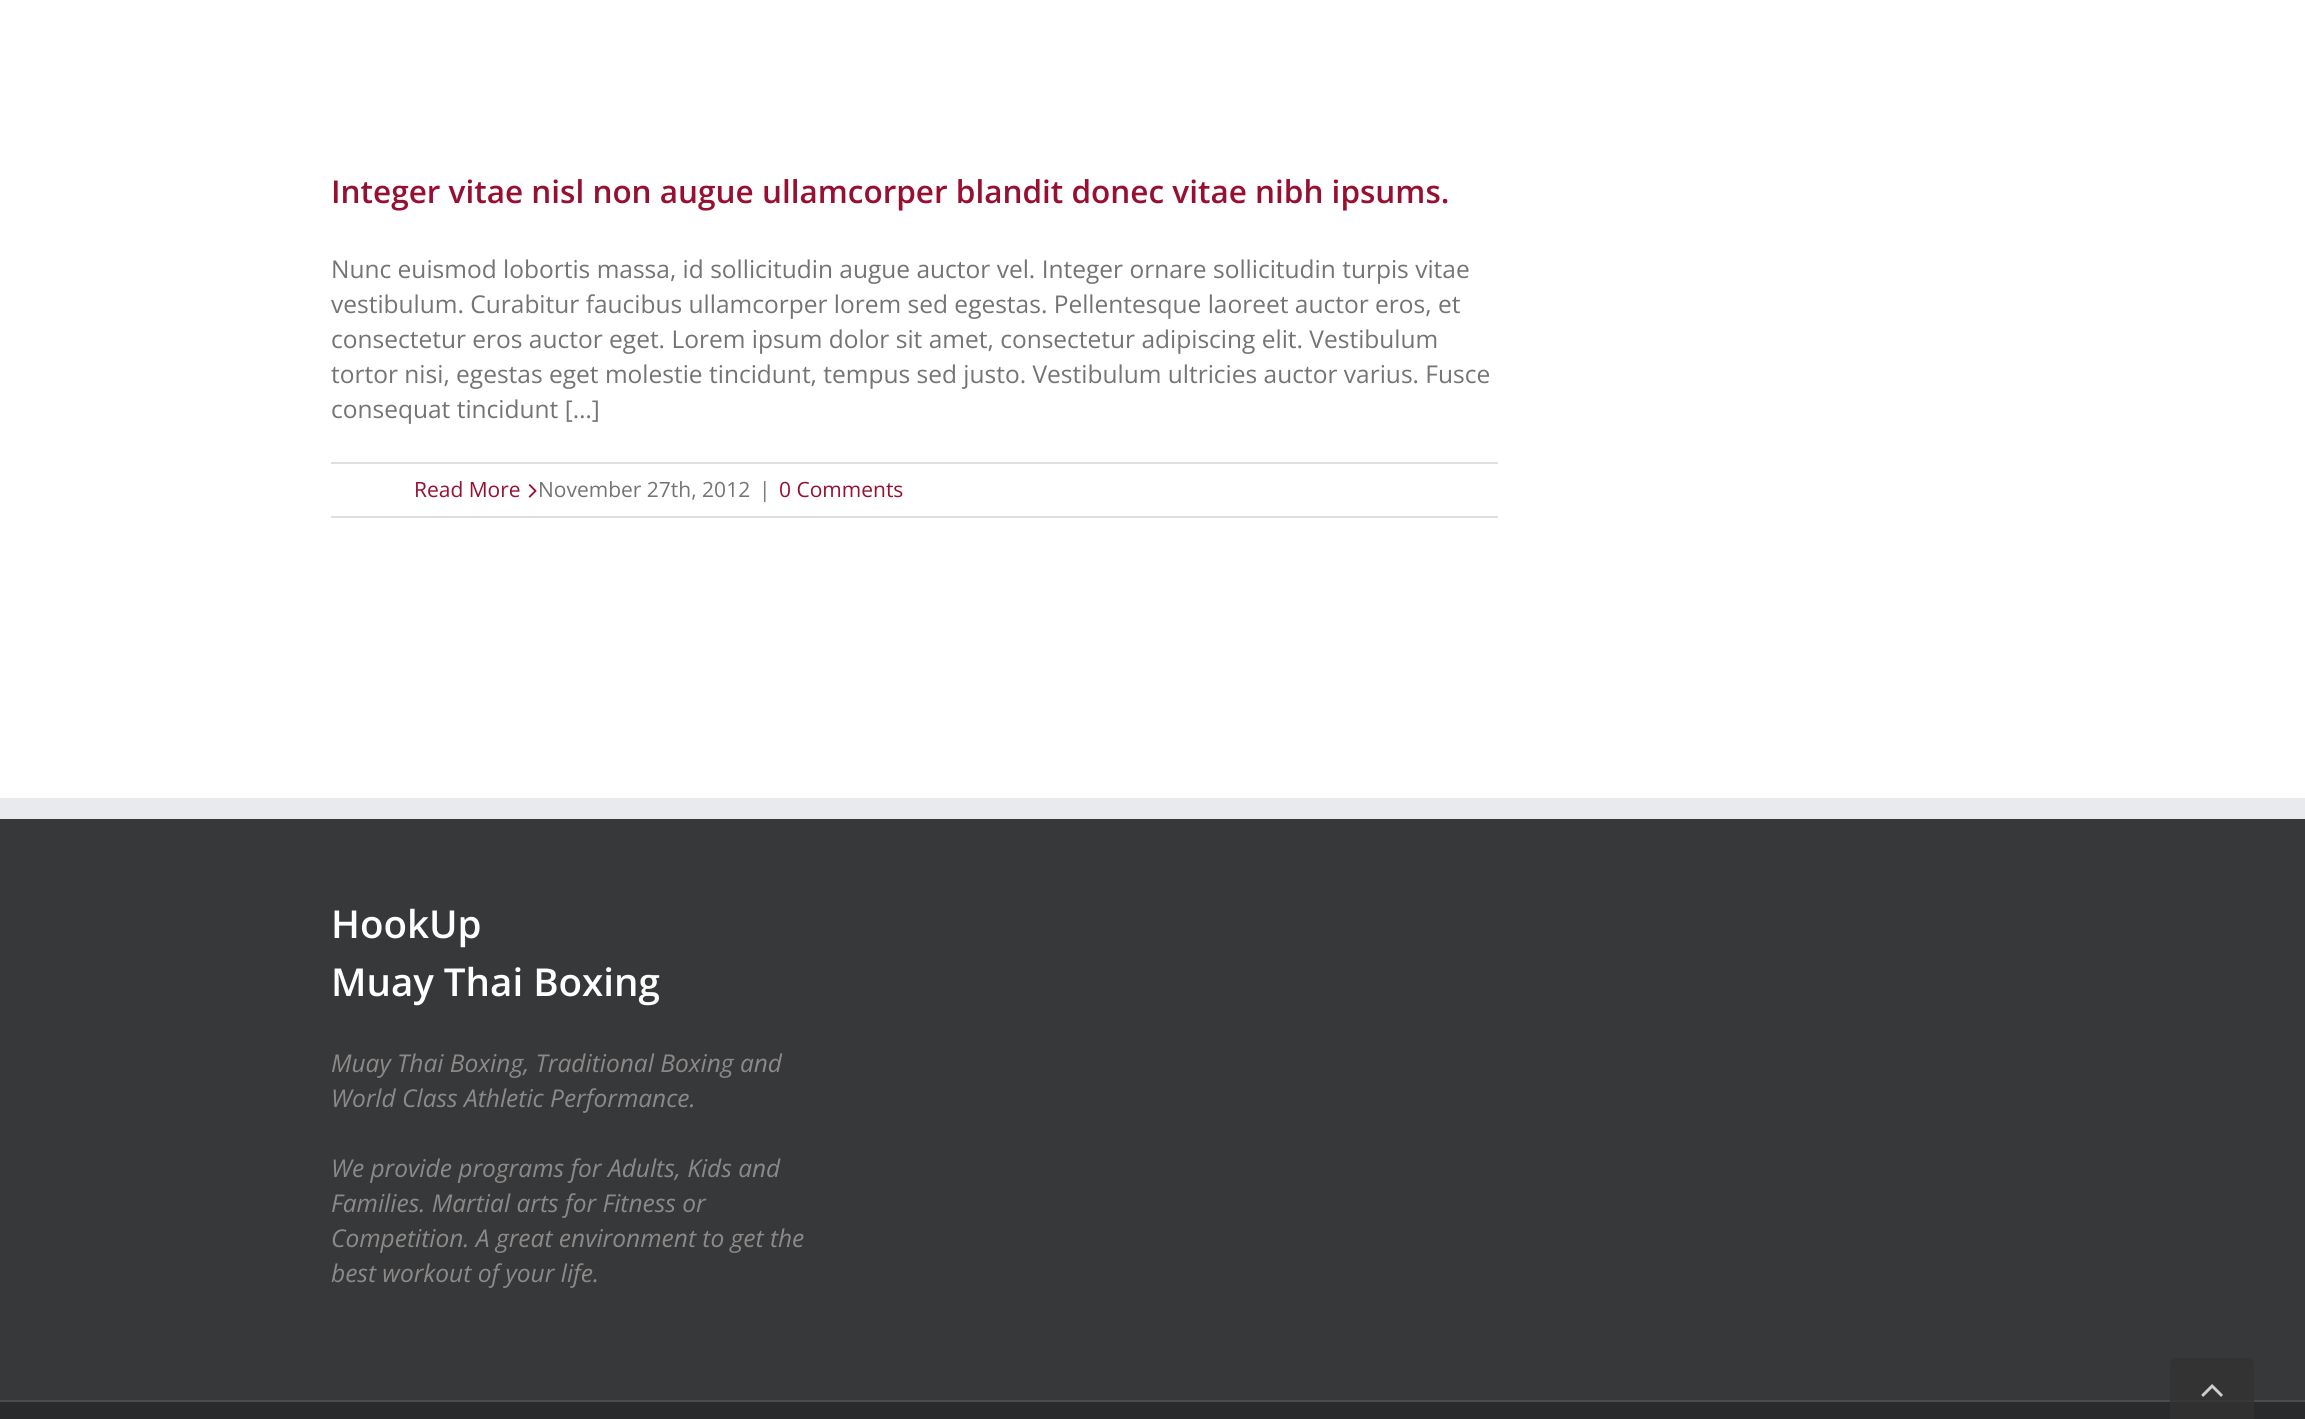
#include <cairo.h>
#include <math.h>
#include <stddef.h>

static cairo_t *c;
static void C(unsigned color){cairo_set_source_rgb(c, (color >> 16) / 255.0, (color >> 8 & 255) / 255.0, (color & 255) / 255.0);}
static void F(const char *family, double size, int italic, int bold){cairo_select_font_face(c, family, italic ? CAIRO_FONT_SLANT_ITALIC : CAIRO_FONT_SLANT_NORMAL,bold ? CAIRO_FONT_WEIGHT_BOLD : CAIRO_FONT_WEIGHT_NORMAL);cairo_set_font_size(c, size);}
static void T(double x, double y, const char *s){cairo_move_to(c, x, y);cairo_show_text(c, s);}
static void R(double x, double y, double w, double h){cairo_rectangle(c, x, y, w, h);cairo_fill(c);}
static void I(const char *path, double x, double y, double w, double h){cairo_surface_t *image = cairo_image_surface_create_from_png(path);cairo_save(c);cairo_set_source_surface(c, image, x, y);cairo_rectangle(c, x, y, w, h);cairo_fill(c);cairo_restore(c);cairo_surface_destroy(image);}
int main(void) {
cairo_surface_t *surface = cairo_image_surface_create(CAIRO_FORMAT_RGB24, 2305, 1419);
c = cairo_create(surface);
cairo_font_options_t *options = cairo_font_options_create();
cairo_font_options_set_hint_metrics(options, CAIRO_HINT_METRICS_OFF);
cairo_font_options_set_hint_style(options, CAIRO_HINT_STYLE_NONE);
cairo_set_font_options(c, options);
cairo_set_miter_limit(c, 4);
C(0xffffff);
cairo_paint(c);
F("Open Sans SemiBold",31.5,0,0);
C(0x981031);
T(331,203,"Integer vitae nisl non augue ullamcorper blandit donec vitae nibh ipsums.");
F("Open Sans",24.5,0,0);
C(0x747474);
T(331,278,"Nunc euismod lobortis massa, id sollicitudin augue auctor vel. Integer ornare sollicitudin turpis vitae");
T(331,313,"vestibulum. Curabitur faucibus ullamcorper lorem sed egestas. Pellentesque laoreet auctor eros, et");
T(331,348,"consectetur eros auctor eget. Lorem ipsum dolor sit amet, consectetur adipiscing elit. Vestibulum");
T(331,383,"tortor nisi, egestas eget molestie tincidunt, tempus sed justo. Vestibulum ultricies auctor varius. Fusce");
T(331,418,"consequat tincidunt […]");
C(0xe0dede);
R(331,462,1167,2);
R(331,516,1167,2);
F("Open Sans",21,0,0);
C(0x981031);
T(414,497,"Read More");
I("1.png",528,484,9,14);
C(0x747474);
T(538,497,"November 27th, 2012");
T(759,497,"|");
C(0x981031);
T(779,497,"0 Comments");
C(0x363839);
R(0,819,2305,581);
C(0xe9eaee);
R(0,798,2305,21);
F("Open Sans SemiBold",38.5,0,0);
C(0xffffff);
T(331,938,"HookUp");
T(331,996,"Muay Thai Boxing");
F("Open Sans",24.5,1,0);
C(0x8c8989);
T(331,1072,"Muay Thai Boxing, Traditional Boxing and");
T(331,1107,"World Class Athletic Performance.");
T(331,1177,"We provide programs for Adults, Kids and");
T(331,1212,"Families. Martial arts for Fitness or");
T(331,1247,"Competition. A great environment to get the");
T(331,1282,"best workout of your life.");
C(0x282a2b);
R(0,1402,2305,17);
C(0x4b4c4d);
R(0,1400,2305,2);
cairo_set_source_rgba(c,0.2,0.2,0.2,0.76);
cairo_new_path(c);
cairo_move_to(c,2177,1358);
cairo_line_to(c,2247,1358);
cairo_curve_to(c,2251,1358,2254,1361,2254,1365);
cairo_line_to(c,2254,1419);
cairo_line_to(c,2170,1419);
cairo_line_to(c,2170,1365);
cairo_curve_to(c,2170,1361,2173,1358,2177,1358);
cairo_close_path(c);
cairo_fill(c);
I("2.png",2201,1384,22,13);
cairo_surface_write_to_png(surface, "o.png");
cairo_font_options_destroy(options);
cairo_destroy(c);
cairo_surface_destroy(surface);
return 0;
}
